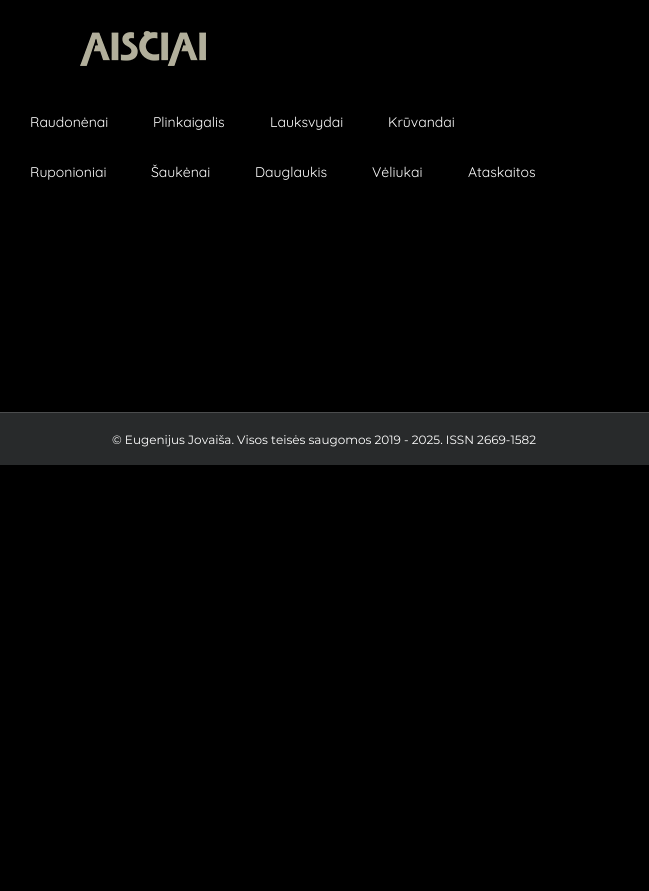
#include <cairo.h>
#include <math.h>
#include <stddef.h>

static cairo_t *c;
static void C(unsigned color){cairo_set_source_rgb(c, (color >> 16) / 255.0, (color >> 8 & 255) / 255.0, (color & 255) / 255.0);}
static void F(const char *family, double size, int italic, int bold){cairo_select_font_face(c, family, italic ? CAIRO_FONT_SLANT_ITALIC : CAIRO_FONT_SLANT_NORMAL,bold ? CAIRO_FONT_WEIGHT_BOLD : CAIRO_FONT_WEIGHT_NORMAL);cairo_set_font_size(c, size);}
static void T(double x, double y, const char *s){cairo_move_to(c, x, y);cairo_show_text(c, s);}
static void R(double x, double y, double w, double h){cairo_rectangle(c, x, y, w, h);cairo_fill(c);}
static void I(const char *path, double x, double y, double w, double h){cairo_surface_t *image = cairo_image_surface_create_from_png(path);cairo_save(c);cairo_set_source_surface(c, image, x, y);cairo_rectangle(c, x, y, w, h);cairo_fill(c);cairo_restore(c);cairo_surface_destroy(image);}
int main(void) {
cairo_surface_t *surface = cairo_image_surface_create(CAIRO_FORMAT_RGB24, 649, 891);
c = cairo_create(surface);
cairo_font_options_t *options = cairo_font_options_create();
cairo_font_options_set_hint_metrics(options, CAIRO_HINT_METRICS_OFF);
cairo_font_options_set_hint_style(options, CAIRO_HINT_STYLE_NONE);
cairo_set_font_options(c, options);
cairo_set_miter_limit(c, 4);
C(0x000000);
cairo_paint(c);
I("1.png",80,31,126,35);
F("Quicksand Light",14,0,0);
C(0xffffff);
T(30,127,"Raudonėnai");
T(153,127,"Plinkaigalis");
T(270,127,"Lauksvydai");
T(388,127,"Krūvandai");
T(30,177,"Ruponioniai");
T(151,177,"Šaukėnai");
T(255,177,"Dauglaukis");
T(372,177,"Vėliukai");
T(468,177,"Ataskaitos");
C(0x282a2b);
R(0,413,649,52);
C(0x4b4c4d);
R(0,412,649,1);
F("Montserrat Thin",12,0,0);
C(0xffffff);
T(112,444,"© Eugenijus Jovaiša. Visos teisės saugomos 2019 - 2025. ISSN 2669-1582");
cairo_surface_write_to_png(surface, "o.png");
cairo_font_options_destroy(options);
cairo_destroy(c);
cairo_surface_destroy(surface);
return 0;
}
